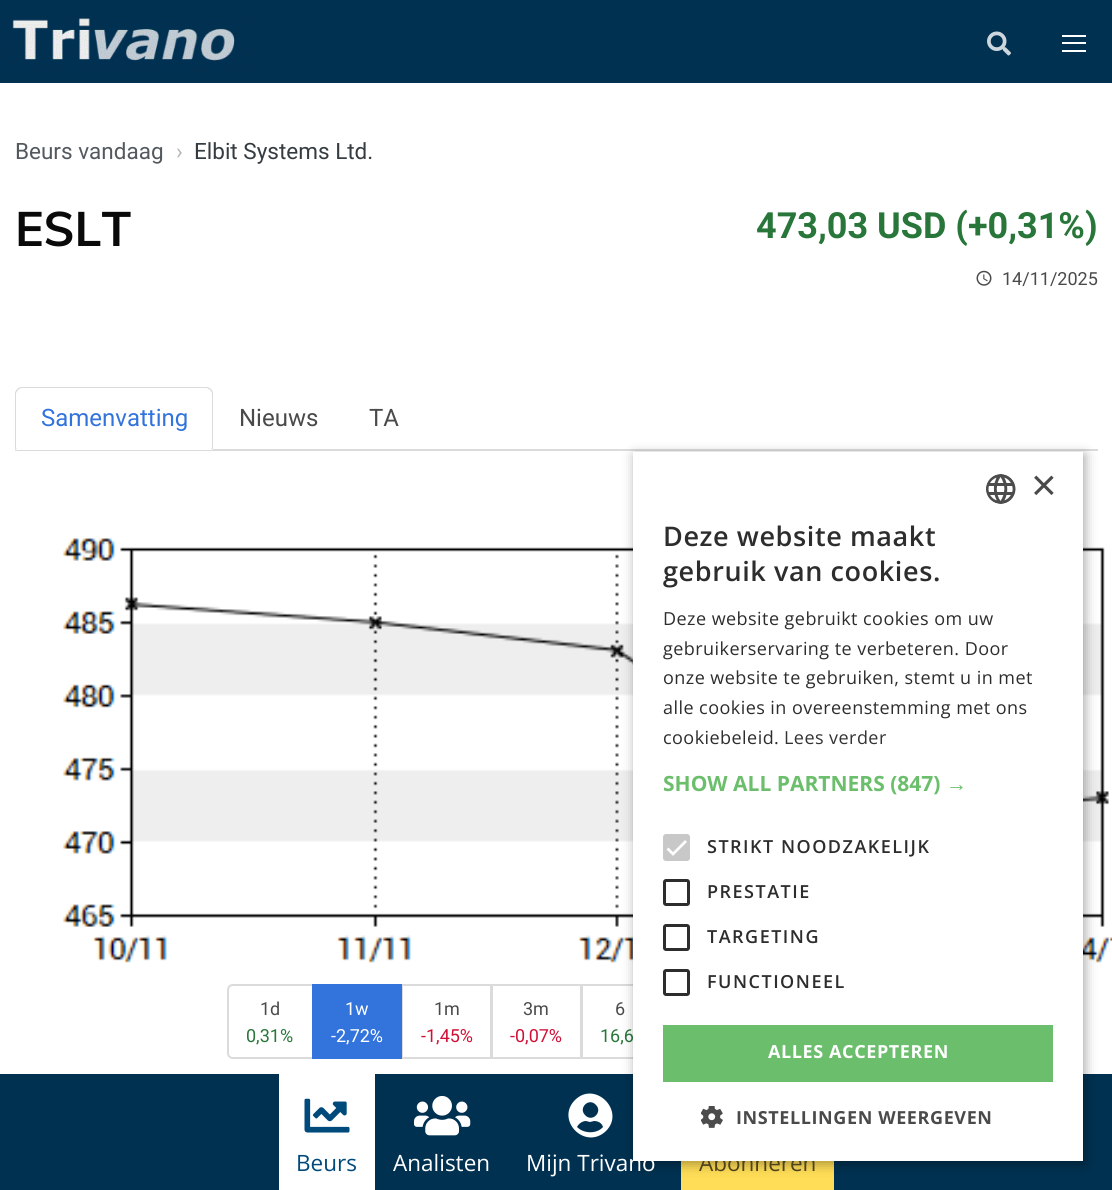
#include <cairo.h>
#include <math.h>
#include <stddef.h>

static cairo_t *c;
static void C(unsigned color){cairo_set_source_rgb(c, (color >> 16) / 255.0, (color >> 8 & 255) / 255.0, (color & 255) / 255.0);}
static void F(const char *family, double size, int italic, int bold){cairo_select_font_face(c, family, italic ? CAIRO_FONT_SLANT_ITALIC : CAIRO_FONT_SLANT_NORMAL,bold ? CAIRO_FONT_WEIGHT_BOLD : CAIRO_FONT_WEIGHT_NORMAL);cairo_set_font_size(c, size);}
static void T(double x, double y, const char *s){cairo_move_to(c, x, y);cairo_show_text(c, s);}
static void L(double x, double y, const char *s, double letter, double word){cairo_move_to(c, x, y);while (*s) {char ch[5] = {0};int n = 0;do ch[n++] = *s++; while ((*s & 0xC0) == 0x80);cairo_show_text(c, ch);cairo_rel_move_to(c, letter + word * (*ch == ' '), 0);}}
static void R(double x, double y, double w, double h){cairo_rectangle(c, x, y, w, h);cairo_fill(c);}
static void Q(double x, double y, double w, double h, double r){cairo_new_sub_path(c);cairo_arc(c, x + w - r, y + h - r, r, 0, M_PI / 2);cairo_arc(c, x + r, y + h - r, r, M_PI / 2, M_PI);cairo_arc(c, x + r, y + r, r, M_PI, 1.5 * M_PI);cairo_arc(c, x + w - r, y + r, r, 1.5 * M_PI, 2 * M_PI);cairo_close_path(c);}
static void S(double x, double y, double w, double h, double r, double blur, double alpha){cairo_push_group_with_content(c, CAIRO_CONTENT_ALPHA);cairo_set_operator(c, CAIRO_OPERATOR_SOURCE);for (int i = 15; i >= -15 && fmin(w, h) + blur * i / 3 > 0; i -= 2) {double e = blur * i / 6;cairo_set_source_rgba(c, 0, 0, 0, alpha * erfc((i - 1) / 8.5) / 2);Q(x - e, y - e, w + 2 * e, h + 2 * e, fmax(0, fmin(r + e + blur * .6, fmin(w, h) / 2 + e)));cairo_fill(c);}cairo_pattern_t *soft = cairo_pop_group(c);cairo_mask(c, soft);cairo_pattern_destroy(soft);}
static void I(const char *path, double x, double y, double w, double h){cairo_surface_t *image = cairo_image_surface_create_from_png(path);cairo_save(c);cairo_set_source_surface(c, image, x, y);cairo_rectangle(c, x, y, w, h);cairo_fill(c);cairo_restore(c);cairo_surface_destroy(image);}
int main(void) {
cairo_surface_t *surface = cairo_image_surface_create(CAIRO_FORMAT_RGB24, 1112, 1190);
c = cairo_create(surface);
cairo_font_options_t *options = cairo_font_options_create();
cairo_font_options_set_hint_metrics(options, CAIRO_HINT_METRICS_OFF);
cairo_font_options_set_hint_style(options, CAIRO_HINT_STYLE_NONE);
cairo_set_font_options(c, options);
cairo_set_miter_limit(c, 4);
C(0xffffff);
cairo_paint(c);
C(0x003151);
R(0,0,1112,83);
I("1.png",1,18,247,56);
I("2.png",987,31,24,25);
C(0xffffff);
R(1062,35,24,2);
R(1062,42,24,2);
R(1062,50,24,2);
F("Roboto",22.5,0,0);
C(0x53595e);
T(15,159,"Beurs vandaag");
C(0xb5b5b5);
T(176,159,"›");
C(0x353c41);
T(194,159,"Elbit Systems Ltd.");
F("Muli",48,0,1);
C(0x0a0a0a);
T(15,246,"ESLT");
F("Roboto",36,0,1);
C(0x28763a);
T(756,238,"473,03 USD (+0,31%)");
I("3.png",976,270,16,16);
F("Roboto",18,0,0);
C(0x4a4a4a);
T(1002,285,"14/11/2025");
C(0xdbdbdb);
R(15,449,1083,2);
C(0xffffff);
cairo_new_path(c);
cairo_move_to(c,21,387);
cairo_line_to(c,207,387);
cairo_curve_to(c,210.5,387,213,389.5,213,393);
cairo_line_to(c,213,450);
cairo_line_to(c,15,450);
cairo_line_to(c,15,393);
cairo_curve_to(c,15,389.5,17.5,387,21,387);
cairo_close_path(c);
cairo_fill(c);
C(0xdbdbdb);
cairo_new_path(c);
cairo_move_to(c,21,387);
cairo_curve_to(c,20,387,18,388,17,389);
cairo_line_to(c,18,390);
cairo_line_to(c,21,388);
cairo_line_to(c,207,388);
cairo_line_to(c,210,390);
cairo_line_to(c,211,389);
cairo_curve_to(c,210,388,208,387,207,387);
cairo_close_path(c);
cairo_fill(c);
cairo_new_path(c);
cairo_move_to(c,213,450);
cairo_line_to(c,213,393);
cairo_curve_to(c,213,392,212,390,211,389);
cairo_line_to(c,210,390);
cairo_line_to(c,212,393);
cairo_line_to(c,212,448);
cairo_line_to(c,211,448);
cairo_close_path(c);
cairo_fill(c);
cairo_new_path(c);
cairo_move_to(c,15,450);
cairo_line_to(c,17,448);
cairo_line_to(c,16,448);
cairo_line_to(c,16,393);
cairo_line_to(c,18,390);
cairo_line_to(c,17,389);
cairo_curve_to(c,16,390,15,392,15,393);
cairo_close_path(c);
cairo_fill(c);
F("Roboto",24,0,0);
C(0x3273dc);
T(41,426,"Samenvatting");
C(0x4a4a4a);
T(239,426,"Nieuws");
T(369,426,"TA");
I("4.png",62,505,1050,458);
cairo_new_path(c);
cairo_move_to(c,233,985);
cairo_line_to(c,313,985);
cairo_line_to(c,313,1058);
cairo_line_to(c,233,1058);
cairo_curve_to(c,230,1058,228,1056,228,1053);
cairo_line_to(c,228,990);
cairo_curve_to(c,228,987,230,985,233,985);
cairo_close_path(c);
C(0xdbdbdb);
cairo_stroke(c);
F("Roboto",18,0,0);
C(0x4a4a4a);
T(260,1015,"1d");
C(0x28763a);
T(246,1042,"0,31%");
cairo_rectangle(c,402,985,89,73);
C(0xdbdbdb);
cairo_stroke(c);
C(0x3273dc);
R(312,984,90,75);
C(0xffffff);
T(345,1015,"1w");
T(331,1042,"-2,72%");
C(0x4a4a4a);
T(434,1015,"1m");
C(0xd11036);
T(421,1042,"-1,45%");
cairo_rectangle(c,492,985,89,73);
C(0xdbdbdb);
cairo_stroke(c);
C(0x4a4a4a);
T(523,1015,"3m");
C(0xd11036);
T(510,1042,"-0,07%");
cairo_rectangle(c,582,985,94,73);
C(0xdbdbdb);
cairo_stroke(c);
C(0x4a4a4a);
T(615,1015,"6");
C(0x28763a);
T(600,1042,"16,6");
C(0x003151);
R(0,1074,1112,116);
C(0xffdd57);
R(681,1161,153,29);
C(0x000000);
S(635,455,450,709,0,6,.35);
F("Open Sans",22.5,0,0);
C(0x4d421a);
T(699,1171,"Abonneren");
C(0xffffff);
R(633,452,450,709);
I("5.png",986,474,30,30);
F("Liberation Sans",44,0,0);
C(0x4a4a4a);
T(1031,500,"×");
F("Open Sans SemiBold",27,0,0);
C(0x2d2d2d);
L(663,546,"Deze website maakt",.6,0);
L(663,581,"gebruik van cookies.",.6,0);
F("Open Sans",18,0,0);
L(663,625,"Deze website gebruikt cookies om uw",.45,0);
L(663,655,"gebruikerservaring te verbeteren. Door",.45,0);
L(663,684,"onze website te gebruiken, stemt u in met",.45,0);
L(663,714,"alle cookies in overeenstemming met ons",.45,0);
L(663,744,"cookiebeleid.",.45,0);
C(0x333333);
L(784,744,"Lees verder",.45,0);
F("Open Sans",21,0,1);
C(0x6bbe6b);
T(663,791,"SHOW ALL PARTNERS (847)");
F("Liberation Sans",21,0,1);
T(946,791,"→");
C(0xc8c8c8);
Q(663,834,27,27,3);
cairo_fill(c);
cairo_new_path(c);
cairo_move_to(c,667.5,848.5);
cairo_line_to(c,673,854);
cairo_line_to(c,686,841);
C(0xffffff);
cairo_set_line_width(c,2.7);
cairo_stroke(c);
F("Open Sans SemiBold",18,0,0);
C(0x2d2d2d);
L(707,853,"STRIKT NOODZAKELIJK",1.5,0);
Q(664.5,880.5,24,24,1.5);
cairo_set_line_width(c,3);
cairo_stroke(c);
L(707,898,"PRESTATIE",1.5,0);
Q(664.5,925.5,24,24,1.5);
cairo_stroke(c);
L(707,943,"TARGETING",1.5,0);
Q(664.5,970.5,24,24,1.5);
cairo_stroke(c);
L(707,988,"FUNCTIONEEL",1.5,0);
C(0x6bbe6b);
R(663,1025,390,57);
F("Open Sans",18,0,1);
C(0xffffff);
L(768,1058,"ALLES ACCEPTEREN",.6,0);
I("6.png",701,1106,22,22);
C(0x4a4a4a);
L(736,1124,"INSTELLINGEN WEERGEVEN",.6,0);
C(0xffffff);
R(279,1074,96,116);
I("7.png",304,1098,46,35);
F("Open Sans",22.5,0,0);
C(0x004a7b);
T(296,1171,"Beurs");
I("8.png",414,1095,57,41);
C(0xffffff);
T(393,1171,"Analisten");
cairo_new_path(c);
cairo_move_to(c,575,1100);
cairo_curve_to(c,595,1080,626,1111,606,1131);
cairo_curve_to(c,585,1151,555,1120,575,1100);
cairo_close_path(c);
cairo_move_to(c,596,1105);
cairo_curve_to(c,589,1097,578,1108,585,1115);
cairo_curve_to(c,592,1123,603,1112,596,1105);
cairo_close_path(c);
cairo_move_to(c,577,1127);
cairo_curve_to(c,584,1134,597,1134,603,1127);
cairo_curve_to(c,602,1123,598,1121,594,1121);
cairo_line_to(c,590,1122);
cairo_line_to(c,586,1121);
cairo_curve_to(c,583,1121,579,1123,577,1127);
cairo_close_path(c);
cairo_fill(c);
T(526,1171,"Mijn Trivano");
cairo_surface_write_to_png(surface, "o.png");
cairo_font_options_destroy(options);
cairo_destroy(c);
cairo_surface_destroy(surface);
return 0;
}
